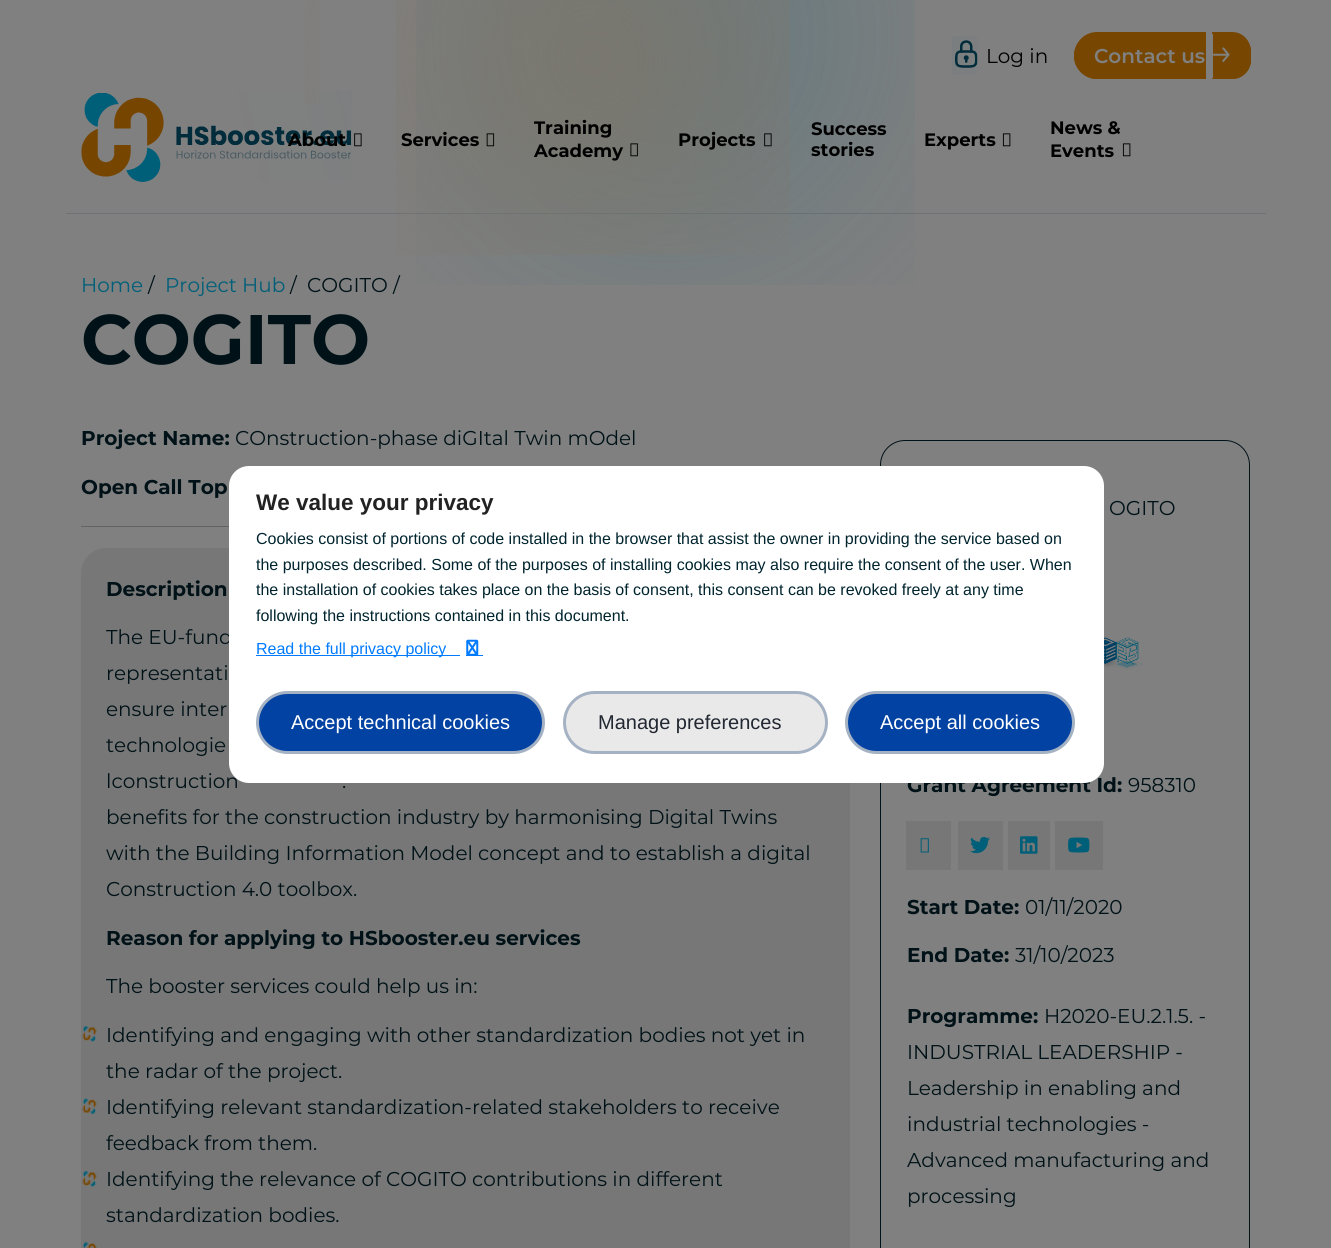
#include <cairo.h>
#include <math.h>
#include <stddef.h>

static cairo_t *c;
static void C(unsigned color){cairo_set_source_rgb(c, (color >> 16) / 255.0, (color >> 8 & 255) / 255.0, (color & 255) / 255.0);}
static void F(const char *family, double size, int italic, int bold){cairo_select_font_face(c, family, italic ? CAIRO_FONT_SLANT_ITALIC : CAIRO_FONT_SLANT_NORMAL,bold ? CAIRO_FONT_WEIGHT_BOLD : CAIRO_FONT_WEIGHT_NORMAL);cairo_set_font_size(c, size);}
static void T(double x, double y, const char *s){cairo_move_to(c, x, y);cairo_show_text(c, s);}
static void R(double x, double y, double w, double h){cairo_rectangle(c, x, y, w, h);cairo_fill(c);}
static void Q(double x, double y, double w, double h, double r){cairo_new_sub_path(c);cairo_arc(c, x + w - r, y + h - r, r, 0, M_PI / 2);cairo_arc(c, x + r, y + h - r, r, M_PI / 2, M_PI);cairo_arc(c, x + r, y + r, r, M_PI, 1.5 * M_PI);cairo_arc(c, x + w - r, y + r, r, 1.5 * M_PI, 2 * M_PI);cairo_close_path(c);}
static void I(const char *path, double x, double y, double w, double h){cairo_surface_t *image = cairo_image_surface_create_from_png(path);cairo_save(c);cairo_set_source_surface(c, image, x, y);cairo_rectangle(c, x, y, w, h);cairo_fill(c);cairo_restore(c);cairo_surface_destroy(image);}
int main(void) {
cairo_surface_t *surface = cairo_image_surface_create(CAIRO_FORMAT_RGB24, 1331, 1248);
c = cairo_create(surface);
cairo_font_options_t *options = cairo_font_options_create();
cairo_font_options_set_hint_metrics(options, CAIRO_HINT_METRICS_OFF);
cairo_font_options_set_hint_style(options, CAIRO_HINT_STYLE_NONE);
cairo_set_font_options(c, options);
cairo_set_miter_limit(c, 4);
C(0x808080);
cairo_paint(c);
I("6.png",81,90,271,92);
I("1.png",304,0,16,104);
C(0x6e7276);
R(66,213,1200,1);
I("3.png",416,0,499,285);
I("2.png",396,0,394,255);
I("4.png",952,36,27,39);
F("Montserrat",20,0,0);
C(0x000000);
T(986,63,"Log in");
C(0x774600);
cairo_new_path(c);
cairo_move_to(c,1097,33);
cairo_line_to(c,1206,33);
cairo_line_to(c,1206,79);
cairo_line_to(c,1097,79);
cairo_curve_to(c,1084.5,79,1074,68.5,1074,56);
cairo_curve_to(c,1074,43.5,1084.5,33,1097,33);
cairo_close_path(c);
cairo_fill(c);
cairo_set_fill_rule(c,CAIRO_FILL_RULE_EVEN_ODD);
cairo_new_path(c);
cairo_move_to(c,1097,32);
cairo_line_to(c,1206,32);
cairo_line_to(c,1206,79);
cairo_line_to(c,1097,79);
cairo_curve_to(c,1084,79,1074,68,1074,56);
cairo_curve_to(c,1074,43,1084,32,1097,32);
cairo_close_path(c);
cairo_move_to(c,1097,34);
cairo_line_to(c,1206,34);
cairo_line_to(c,1206,78);
cairo_line_to(c,1097,78);
cairo_curve_to(c,1085,78,1075,68,1075,56);
cairo_curve_to(c,1075,44,1085,34,1097,34);
cairo_close_path(c);
cairo_fill(c);
F("Montserrat SemiBold",20,0,0);
C(0x808080);
T(1094,63,"Contact us");
C(0x774600);
cairo_new_path(c);
cairo_move_to(c,1213,33);
cairo_line_to(c,1232,33);
cairo_curve_to(c,1242.5,33,1251,41.5,1251,52);
cairo_line_to(c,1251,60);
cairo_curve_to(c,1251,70.5,1242.5,79,1232,79);
cairo_line_to(c,1213,79);
cairo_close_path(c);
cairo_fill(c);
cairo_new_path(c);
cairo_move_to(c,1212,32);
cairo_line_to(c,1232,32);
cairo_curve_to(c,1243,32,1251,41,1251,52);
cairo_line_to(c,1251,59);
cairo_curve_to(c,1251,70,1243,79,1232,79);
cairo_line_to(c,1212,79);
cairo_close_path(c);
cairo_move_to(c,1212,34);
cairo_line_to(c,1232,34);
cairo_curve_to(c,1242,34,1250,42,1250,52);
cairo_line_to(c,1250,59);
cairo_curve_to(c,1250,69,1242,78,1232,78);
cairo_line_to(c,1212,78);
cairo_close_path(c);
cairo_fill(c);
I("5.png",1213,47,17,15);
F("Montserrat",18,0,1);
C(0x000000);
T(288,146,"About");
I("7.png",354,133,8,14);
T(401,146,"Services");
I("8.png",486,133,9,14);
T(534,134,"Training");
T(534,157,"Academy");
I("9.png",630,143,8,14);
T(678,146,"Projects");
I("10.png",764,133,8,14);
T(811,135,"Success");
T(811,156,"stories");
T(924,146,"Experts");
I("11.png",1002,133,9,14);
T(1050,134,"News &");
T(1050,157,"Events");
I("11.png",1122,143,9,14);
F("Montserrat",20,0,0);
C(0x005f78);
T(81,292,"Home");
C(0x001217);
T(148,292,"/");
C(0x005f78);
T(165,292,"Project Hub");
C(0x001217);
T(290,292,"/");
T(307,292,"COGITO /");
F("Montserrat",70,0,1);
T(81,364,"COGITO");
F("Montserrat",20,0,1);
T(81,445,"Project Name:");
F("Montserrat",20,0,0);
T(235,445,"COnstruction-phase diGItal Twin mOdel");
F("Montserrat",20,0,1);
T(81,494,"Open Call Top");
C(0x606466);
R(81,526,148,1);
C(0x777777);
Q(81,548,769,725,25);
cairo_fill(c);
C(0x001217);
T(106,596,"Description");
F("Montserrat",20,0,0);
T(106,644,"The EU-fund");
T(106,680,"representati");
T(106,716,"ensure inter");
T(106,752,"technologie");
T(106,788,"lconstruction");
T(342,788,".");
T(106,824,"benefits for the construction industry by harmonising Digital Twins");
T(106,860,"with the Building Information Model concept and to establish a digital");
T(106,896,"Construction 4.0 toolbox.");
F("Montserrat",20,0,1);
T(106,945,"Reason for applying to HSbooster.eu services");
F("Montserrat",20,0,0);
T(106,993,"The booster services could help us in:");
I("12.png",82,1026,15,16);
T(106,1042,"Identifying and engaging with other standardization bodies not yet in");
T(106,1078,"the radar of the project.");
I("13.png",82,1098,15,16);
T(106,1114,"Identifying relevant standardization-related stakeholders to receive");
T(106,1150,"feedback from them.");
I("14.png",82,1171,15,16);
T(106,1186,"Identifying the relevance of COGITO contributions in different");
T(106,1222,"standardization bodies.");
I("15.png",82,1242,15,6);
Q(880.5,440.5,369,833,24.5);
cairo_set_line_width(c,1);
cairo_stroke(c);
T(1109,515,"OGITO");
I("16.png",1104,637,39,33);
F("Montserrat",20,0,1);
T(907,792,"Grant Agreement Id:");
F("Montserrat",20,0,0);
T(1128,792,"958310");
C(0x777777);
R(906,821,45,49);
I("17.png",920,838,9,15);
R(958,821,45,49);
I("18.png",970,836,20,18);
R(1008,821,42,49);
I("19.png",1020,836,18,18);
R(1055,821,48,49);
I("20.png",1068,837,22,16);
F("Montserrat",20,0,1);
C(0x001217);
T(907,914,"Start Date:");
F("Montserrat",20,0,0);
T(1025,914,"01/11/2020");
F("Montserrat",20,0,1);
T(907,962,"End Date:");
F("Montserrat",20,0,0);
T(1015,962,"31/10/2023");
F("Montserrat",20,0,1);
T(907,1023,"Programme:");
F("Montserrat",20,0,0);
T(1044,1023,"H2020-EU.2.1.5. -");
T(907,1059,"INDUSTRIAL LEADERSHIP -");
T(907,1095,"Leadership in enabling and");
T(907,1131,"industrial technologies -");
T(907,1167,"Advanced manufacturing and");
T(907,1203,"processing");
C(0xffffff);
Q(229,466,875,317,20);
cairo_fill(c);
F("Liberation Sans",22.5,0,1);
C(0x222222);
T(256,510,"We value your privacy");
F("Liberation Sans",16,0,0);
C(0x00242e);
T(256,544,"Cookies consist of portions of code installed in the browser that assist the owner in providing the service based on");
T(256,570,"the purposes described. Some of the purposes of installing cookies may also require the consent of the user. When");
T(256,595,"the installation of cookies takes place on the basis of consent, this consent can be revoked freely at any time");
T(256,621,"following the instructions contained in this document.");
C(0x007bff);
R(256,655,204,1);
T(256,654,"Read the full privacy policy");
R(466,655,17,1);
I("21.png",466,639,13,16);
C(0x0242a2);
Q(257.5,692.5,286,60,30);
cairo_fill_preserve(c);
C(0xa5b2c3);
cairo_set_line_width(c,3);
cairo_stroke(c);
F("Liberation Sans",20,0,0);
C(0xffffff);
T(291,729,"Accept technical cookies");
C(0xe9e9ea);
Q(564.5,692.5,262,60,30);
cairo_fill_preserve(c);
C(0xa5b2c3);
cairo_stroke(c);
C(0x222831);
T(598,729,"Manage preferences");
C(0x0242a2);
Q(846.5,692.5,227,60,30);
cairo_fill_preserve(c);
C(0xa5b2c3);
cairo_stroke(c);
C(0xffffff);
T(880,729,"Accept all cookies");
cairo_surface_write_to_png(surface, "o.png");
cairo_font_options_destroy(options);
cairo_destroy(c);
cairo_surface_destroy(surface);
return 0;
}
